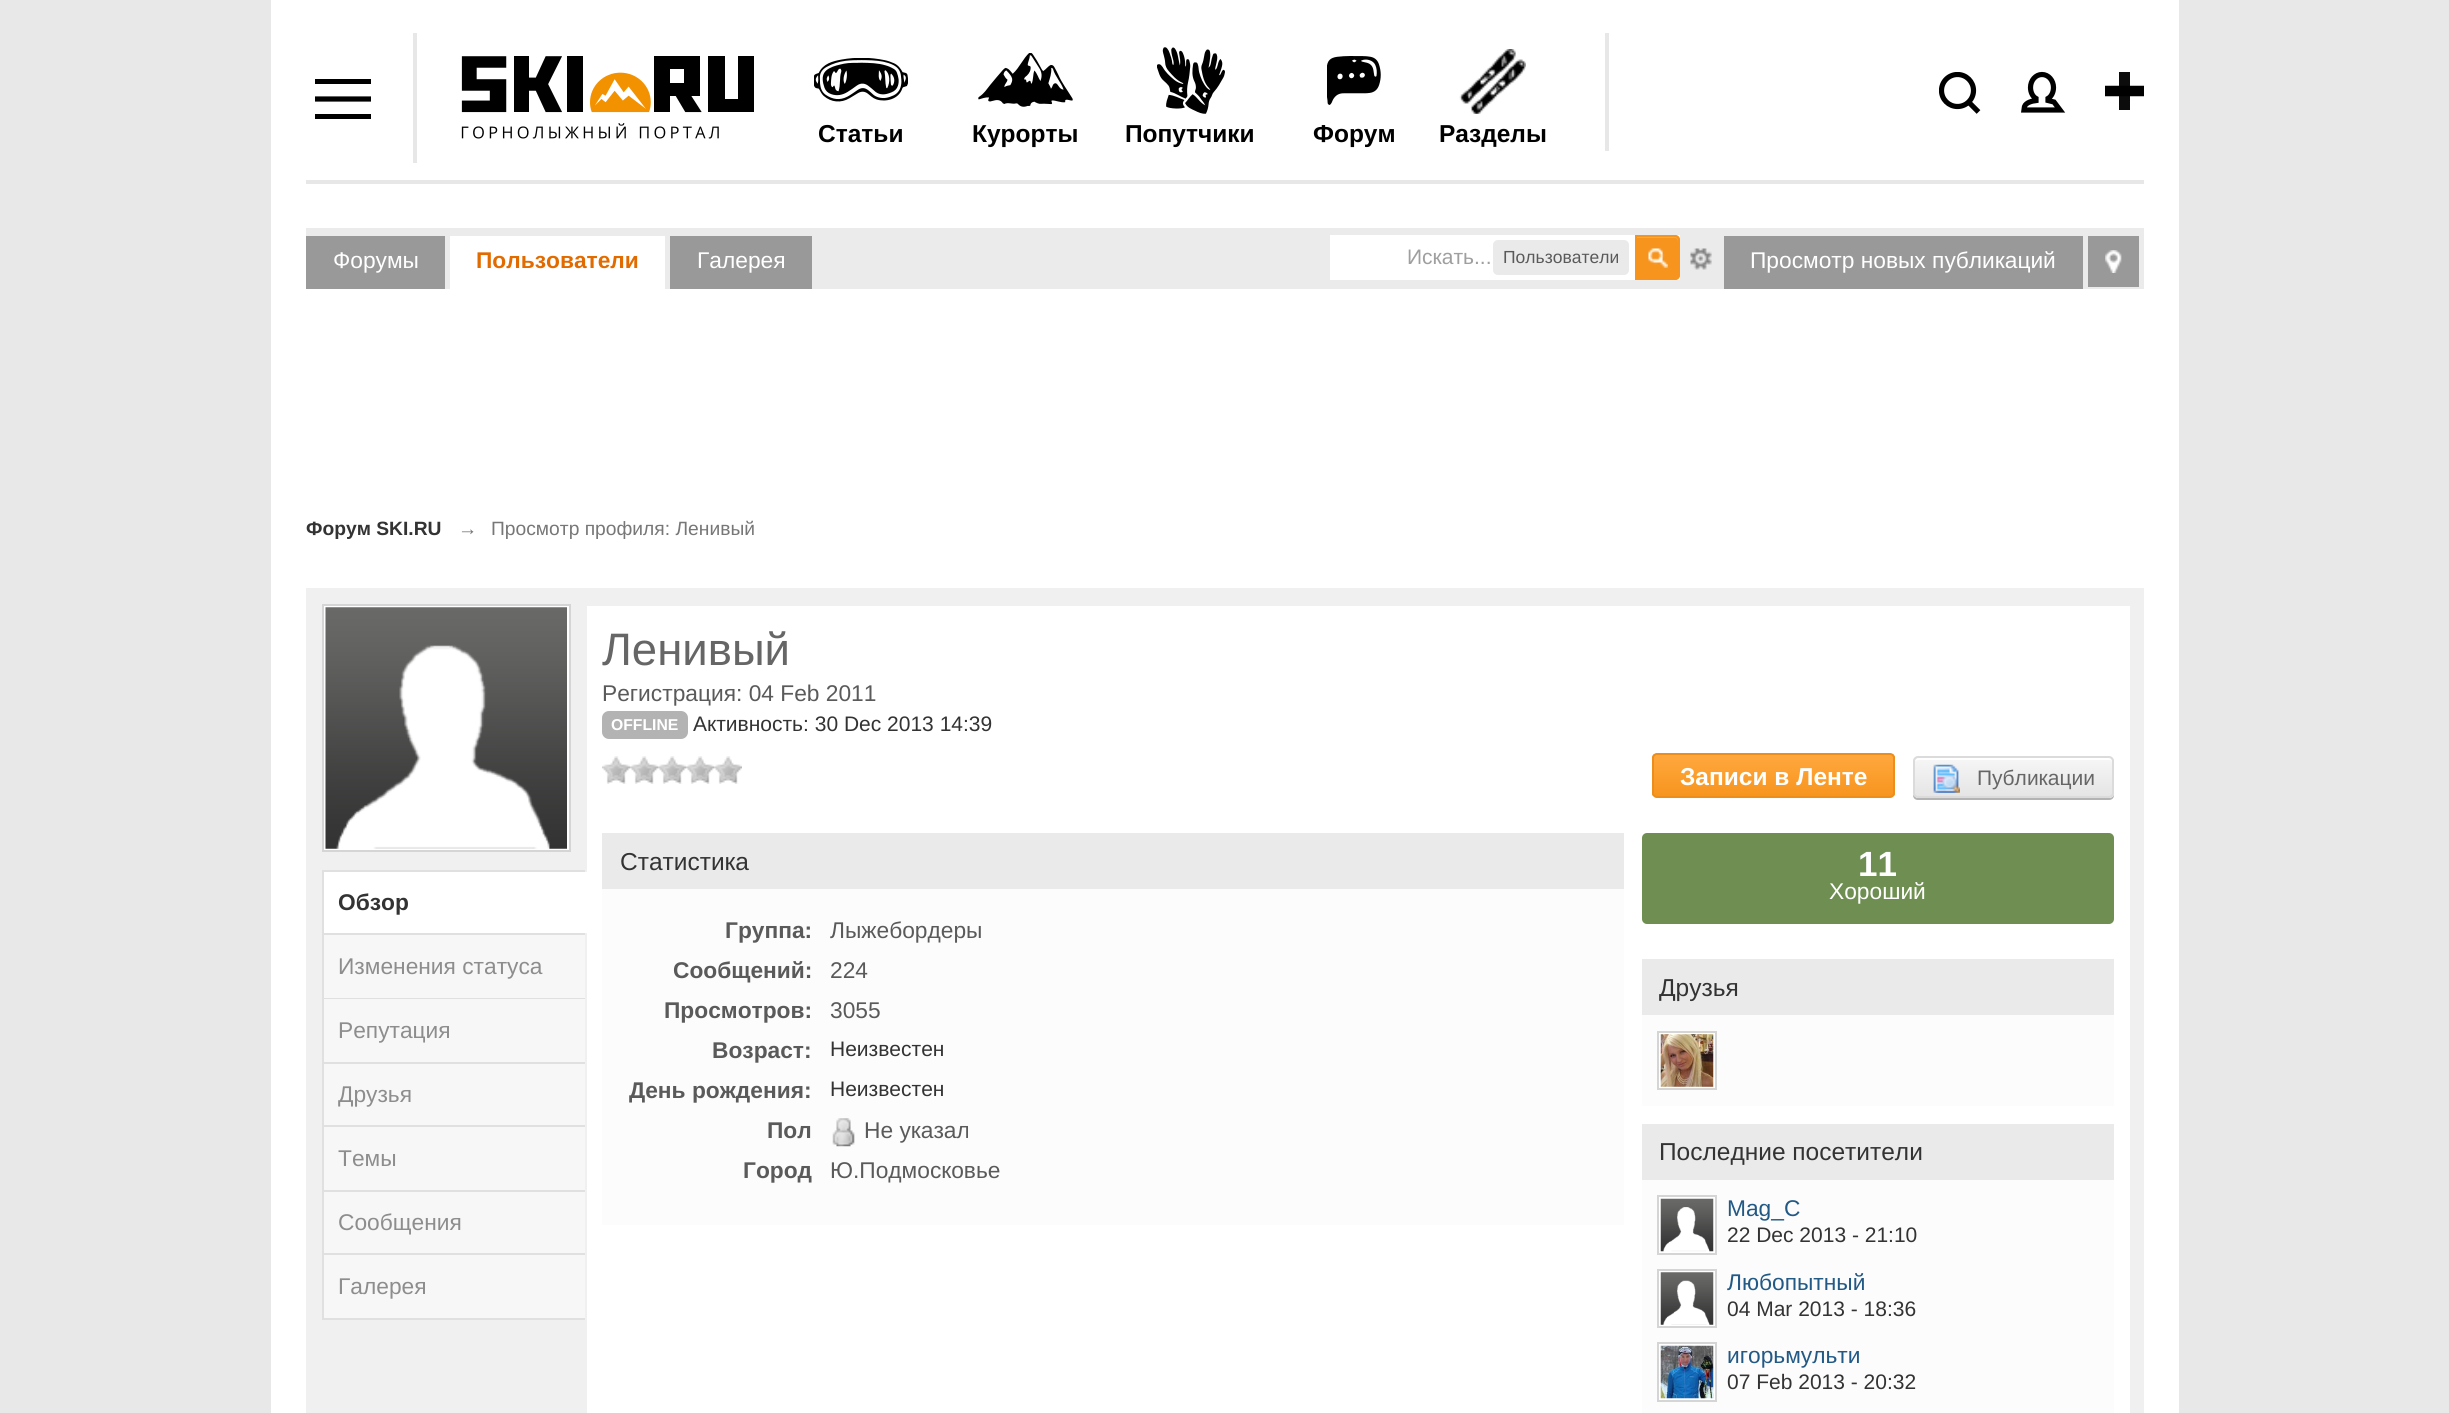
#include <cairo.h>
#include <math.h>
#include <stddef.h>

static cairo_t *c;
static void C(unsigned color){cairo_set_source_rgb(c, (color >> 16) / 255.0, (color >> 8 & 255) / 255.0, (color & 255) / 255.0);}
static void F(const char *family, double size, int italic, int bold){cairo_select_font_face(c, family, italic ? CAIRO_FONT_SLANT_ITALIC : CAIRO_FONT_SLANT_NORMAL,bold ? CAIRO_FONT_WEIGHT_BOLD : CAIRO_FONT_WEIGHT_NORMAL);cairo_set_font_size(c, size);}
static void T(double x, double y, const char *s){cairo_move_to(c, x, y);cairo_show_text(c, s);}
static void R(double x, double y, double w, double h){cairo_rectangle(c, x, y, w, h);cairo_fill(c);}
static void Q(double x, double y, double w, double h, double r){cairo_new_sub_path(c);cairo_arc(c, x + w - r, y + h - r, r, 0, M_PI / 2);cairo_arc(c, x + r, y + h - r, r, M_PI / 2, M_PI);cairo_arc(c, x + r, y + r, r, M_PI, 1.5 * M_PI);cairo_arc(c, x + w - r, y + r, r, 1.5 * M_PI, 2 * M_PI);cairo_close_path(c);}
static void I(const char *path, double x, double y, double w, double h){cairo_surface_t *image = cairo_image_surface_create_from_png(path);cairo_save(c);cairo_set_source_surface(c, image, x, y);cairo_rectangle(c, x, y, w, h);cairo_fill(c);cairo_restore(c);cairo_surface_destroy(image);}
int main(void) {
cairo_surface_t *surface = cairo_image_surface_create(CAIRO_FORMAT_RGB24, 2449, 1413);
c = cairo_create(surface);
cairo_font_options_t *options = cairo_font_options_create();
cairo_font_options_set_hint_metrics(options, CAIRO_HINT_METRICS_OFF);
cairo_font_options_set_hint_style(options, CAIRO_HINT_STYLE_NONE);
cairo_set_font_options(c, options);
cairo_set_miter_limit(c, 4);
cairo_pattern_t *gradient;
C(0xe8e8e8);
cairo_paint(c);
C(0xffffff);
R(271,0,1908,1413);
C(0xe7e7e7);
R(306,180,1838,4);
C(0x000000);
R(315,79,56,5);
cairo_new_path(c);
cairo_move_to(c,315,99);
cairo_line_to(c,371,99);
cairo_set_line_width(c,5.2);
cairo_stroke(c);
R(315,114,56,5);
C(0xe7e7e7);
R(413,33,4,130);
I("1.png",461,56,293,83);
cairo_save(c);
cairo_rectangle(c,1939,72,42,42);
cairo_clip(c);
cairo_arc(c,1957.5,90.5,16,0,2 * M_PI);
C(0x000000);
cairo_stroke(c);
cairo_restore(c);
cairo_new_path(c);
cairo_move_to(c,1969,102.5);
cairo_line_to(c,1978.5,112);
C(0x000000);
cairo_stroke(c);
cairo_new_path(c);
cairo_move_to(c,2058,110);
cairo_line_to(c,2060,110);
cairo_line_to(c,2054,102);
cairo_line_to(c,2048,100.5);
cairo_line_to(c,2048,98.5);
cairo_curve_to(c,2051.5,96.5,2053.5,92,2053.5,87.5);
cairo_curve_to(c,2053.5,80.5,2048.5,74.5,2042,74.5);
cairo_curve_to(c,2035.5,74.5,2030.5,80.5,2030.5,87.5);
cairo_curve_to(c,2030.5,92,2032.5,96.5,2036,98.5);
cairo_line_to(c,2036,100.5);
cairo_curve_to(c,2032,101,2026,102.5,2024.5,106.5);
cairo_line_to(c,2024,110);
cairo_close_path(c);
cairo_stroke(c);
cairo_new_path(c);
cairo_move_to(c,2105,91);
cairo_line_to(c,2144,91);
cairo_set_line_width(c,10.5);
cairo_stroke(c);
cairo_set_source_rgba(c,0,0,0,0.95);
R(2119,72,11,38);
I("2.png",814,58,94,44);
F("Liberation Sans",24.5,0,1);
C(0x000000);
T(818,142,"Статьи");
I("3.png",978,53,95,54);
T(972,142,"Курорты");
I("4.png",1157,47,68,67);
T(1125,142,"Попутчики");
I("5.png",1327,56,54,49);
T(1313,142,"Форум");
I("6.png",1459,49,67,65);
T(1439,142,"Разделы");
C(0xe7e7e7);
R(1605,33,4,118);
C(0xebebeb);
R(306,228,1838,61);
C(0xffffff);
R(1330,235,350,45);
F("Liberation Sans",21,0,0);
C(0x9f9f9f);
T(1407,264,"Искать...");
C(0xeaeaea);
Q(1493,240,136,35,5);
cairo_fill(c);
F("Liberation Sans",17.5,0,0);
C(0x5a5a5a);
T(1503,263,"Пользователи");
C(0xf7941d);
cairo_new_path(c);
cairo_move_to(c,1635,235);
cairo_line_to(c,1675,235);
cairo_curve_to(c,1678,235,1680,237,1680,240);
cairo_line_to(c,1680,275);
cairo_curve_to(c,1680,278,1678,280,1675,280);
cairo_line_to(c,1635,280);
cairo_close_path(c);
cairo_fill(c);
I("7.png",1648,248,20,20);
C(0xf9a94a);
cairo_new_path(c);
cairo_move_to(c,1636,238);
cairo_line_to(c,1675,238);
cairo_curve_to(c,1677,238,1678,240,1678,242);
cairo_line_to(c,1678,240);
cairo_curve_to(c,1678,238,1676,236,1674,236);
cairo_line_to(c,1636,236);
cairo_close_path(c);
cairo_fill(c);
cairo_new_path(c);
cairo_move_to(c,1636,236);
cairo_line_to(c,1675,236);
cairo_curve_to(c,1677,236,1679,238,1679,240);
cairo_line_to(c,1679,275);
cairo_curve_to(c,1679,277,1677,279,1675,279);
cairo_line_to(c,1636,279);
cairo_close_path(c);
C(0xf7941d);
cairo_set_line_width(c,2);
cairo_stroke(c);
I("8.png",1690,248,22,22);
C(0x999999);
R(306,236,139,53);
F("Liberation Sans",22.75,0,0);
C(0xffffff);
T(333,268,"Форумы");
R(450,236,215,53);
F("Liberation Sans",22.75,0,1);
C(0xe26b00);
T(476,268,"Пользователи");
C(0x999999);
R(670,236,142,53);
F("Liberation Sans",22.75,0,0);
C(0xffffff);
T(697,268,"Галерея");
C(0x999999);
R(1724,236,359,53);
C(0xffffff);
T(1750,268,"Просмотр новых публикаций");
C(0x999999);
R(2088,236,51,51);
I("9.png",2105,250,17,23);
F("Liberation Sans",19.25,0,1);
C(0x333333);
T(306,535,"Форум SKI.RU");
F("Liberation Sans",19.25,0,0);
C(0x777777);
T(458,535,"→");
T(491,535,"Просмотр профиля: Ленивый");
C(0xf0f0f0);
R(306,588,1838,825);
C(0xffffff);
cairo_rectangle(c,323,605,247,246);
cairo_fill_preserve(c);
C(0xd5d5d5);
cairo_stroke(c);
I("10.png",325,607,242,242);
C(0xe0e0e0);
R(322,870,263,2);
R(322,870,2,450);
R(324,933,261,2);
C(0xffffff);
R(324,872,263,61);
F("Liberation Sans",22.75,0,1);
C(0x333333);
T(338,910,"Обзор");
C(0xf7f7f7);
R(324,935,261,63);
C(0xe0e0e0);
R(324,998,261,1);
F("Liberation Sans",22.75,0,0);
C(0x8d8d8d);
T(338,974,"Изменения статуса");
C(0xf7f7f7);
R(324,999,261,63);
C(0xe0e0e0);
R(324,1062,261,2);
C(0x8d8d8d);
T(338,1038,"Репутация");
C(0xf7f7f7);
R(324,1064,261,61);
C(0xe0e0e0);
R(324,1125,261,2);
C(0x8d8d8d);
T(338,1102,"Друзья");
C(0xf7f7f7);
R(324,1127,261,63);
C(0xe0e0e0);
R(324,1190,261,2);
C(0x8d8d8d);
T(338,1166,"Темы");
C(0xf7f7f7);
R(324,1192,261,61);
C(0xe0e0e0);
R(324,1253,261,2);
C(0x8d8d8d);
T(338,1230,"Сообщения");
C(0xf7f7f7);
R(324,1255,261,63);
C(0xe0e0e0);
R(324,1318,261,2);
C(0x8d8d8d);
T(338,1294,"Галерея");
C(0xffffff);
R(587,606,1543,807);
F("Liberation Sans",45.5,0,0);
C(0x666666);
T(602,665,"Ленивый");
F("Liberation Sans",22.75,0,0);
C(0x5a5a5a);
T(602,701,"Регистрация: 04 Feb 2011");
C(0xb3b3b3);
Q(602,711,86,28,7);
cairo_fill(c);
F("Liberation Sans",15.75,0,1);
C(0xffffff);
T(611,730,"OFFLINE");
F("Liberation Sans",21,0,0);
C(0x333333);
T(693,731,"Активность: 30 Dec 2013 14:39");
I("11.png",602,756,28,28);
I("12.png",630,756,28,28);
I("11.png",658,756,28,28);
I("11.png",686,756,28,28);
I("12.png",714,756,28,28);
cairo_save(c);
Q(1652,753,243,45,5);
cairo_clip(c);
gradient = cairo_pattern_create_linear(1654,754,1654,796);
cairo_pattern_add_color_stop_rgba(gradient,0,1,0.659,0.247,1);
cairo_pattern_add_color_stop_rgba(gradient,1,0.969,0.584,0.118,1);
cairo_set_source(c,gradient);
cairo_pattern_destroy(gradient);
R(1652,754,243,42);
cairo_restore(c);
Q(1653,754,241,43,4);
C(0xec8d1c);
cairo_stroke(c);
F("Liberation Sans",24.5,0,1);
C(0xffffff);
T(1680,785,"Записи в Ленте");
C(0xb3b3b3);
cairo_new_path(c);
cairo_move_to(c,1913,794);
cairo_line_to(c,1913,795);
cairo_curve_to(c,1913,798,1915,800,1918,800);
cairo_line_to(c,2109,800);
cairo_curve_to(c,2112,800,2114,798,2114,795);
cairo_line_to(c,2114,793);
cairo_curve_to(c,2114,796,2112,798,2109,798);
cairo_line_to(c,1918,798);
cairo_curve_to(c,1916,798,1914,796,1913,794);
cairo_close_path(c);
cairo_fill(c);
cairo_save(c);
Q(1913,756,201,42,5);
cairo_clip(c);
gradient = cairo_pattern_create_linear(1915,758,1915,796);
cairo_pattern_add_color_stop_rgba(gradient,0,0.965,0.965,0.965,1);
cairo_pattern_add_color_stop_rgba(gradient,1,0.898,0.898,0.898,1);
cairo_set_source(c,gradient);
cairo_pattern_destroy(gradient);
R(1913,758,201,38);
cairo_restore(c);
C(0xffffff);
cairo_new_path(c);
cairo_move_to(c,1918,760);
cairo_line_to(c,2109,760);
cairo_curve_to(c,2111,760,2112,761,2112,763);
cairo_line_to(c,2112,762);
cairo_curve_to(c,2112,760,2110,758,2108,758);
cairo_line_to(c,1919,758);
cairo_curve_to(c,1917,758,1916,759,1915,761);
cairo_close_path(c);
cairo_fill(c);
Q(1914,757,199,40,4);
C(0xdbdbdb);
cairo_stroke(c);
I("13.png",1933,764,27,29);
F("Liberation Sans",21,0,0);
C(0x666666);
T(1977,785,"Публикации");
C(0xfcfcfc);
R(602,889,1022,336);
C(0xeaeaea);
R(602,833,1022,56);
F("Liberation Sans",24.5,0,0);
C(0x333333);
T(620,870,"Статистика");
F("Liberation Sans",22.75,0,1);
C(0x5a5a5a);
T(725,938,"Группа:");
F("Liberation Sans",22.75,0,0);
T(830,938,"Лыжебордеры");
F("Liberation Sans",22.75,0,1);
T(673,978,"Сообщений:");
F("Liberation Sans",22.75,0,0);
T(830,978,"224");
F("Liberation Sans",22.75,0,1);
T(664,1018,"Просмотров:");
F("Liberation Sans",22.75,0,0);
T(830,1018,"3055");
F("Liberation Sans",22.75,0,1);
T(712,1058,"Возраст:");
F("Liberation Sans",21,0,0);
C(0x333333);
T(830,1056,"Неизвестен");
F("Liberation Sans",22.75,0,1);
C(0x5a5a5a);
T(629,1098,"День рождения:");
F("Liberation Sans",21,0,0);
C(0x333333);
T(830,1096,"Неизвестен");
F("Liberation Sans",22.75,0,1);
C(0x5a5a5a);
T(767,1138,"Пол");
I("14.png",832,1118,23,29);
F("Liberation Sans",22.75,0,0);
T(864,1138,"Не указал");
F("Liberation Sans",22.75,0,1);
T(743,1178,"Город");
F("Liberation Sans",22.75,0,0);
T(830,1178,"Ю.Подмосковье");
C(0x6f8f52);
Q(1642,833,472,91,5);
cairo_fill(c);
F("Liberation Sans",35,0,1);
C(0xffffff);
T(1858,876,"11");
F("Liberation Sans",22.75,0,0);
T(1829,899,"Хороший");
C(0xfcfcfc);
R(1642,1015,472,91);
C(0xeaeaea);
R(1642,959,472,56);
F("Liberation Sans",24.5,0,0);
C(0x333333);
T(1659,996,"Друзья");
C(0xffffff);
cairo_rectangle(c,1658,1032,58,57);
cairo_fill_preserve(c);
C(0xd5d5d5);
cairo_stroke(c);
I("15.png",1660,1034,54,53);
C(0xfcfcfc);
R(1642,1180,472,233);
C(0xeaeaea);
R(1642,1124,472,56);
C(0x333333);
T(1659,1160,"Последние посетители");
C(0xffffff);
cairo_rectangle(c,1658,1196,58,58);
cairo_fill_preserve(c);
C(0xd5d5d5);
cairo_stroke(c);
I("16.png",1660,1198,54,54);
F("Liberation Sans",22.75,0,0);
C(0x225985);
T(1727,1216,"Mag_C");
F("Liberation Sans",21,0,0);
C(0x333333);
T(1727,1242,"22 Dec 2013 - 21:10");
C(0xffffff);
cairo_rectangle(c,1658,1270,58,57);
cairo_fill_preserve(c);
C(0xd5d5d5);
cairo_stroke(c);
I("17.png",1660,1272,54,53);
F("Liberation Sans",22.75,0,0);
C(0x225985);
T(1727,1290,"Любопытный");
F("Liberation Sans",21,0,0);
C(0x333333);
T(1727,1316,"04 Mar 2013 - 18:36");
C(0xffffff);
cairo_rectangle(c,1658,1343,58,58);
cairo_fill_preserve(c);
C(0xd5d5d5);
cairo_stroke(c);
I("18.png",1660,1345,54,54);
F("Liberation Sans",22.75,0,0);
C(0x225985);
T(1727,1363,"игорьмульти");
F("Liberation Sans",21,0,0);
C(0x333333);
T(1727,1389,"07 Feb 2013 - 20:32");
cairo_surface_write_to_png(surface, "o.png");
cairo_font_options_destroy(options);
cairo_destroy(c);
cairo_surface_destroy(surface);
return 0;
}
